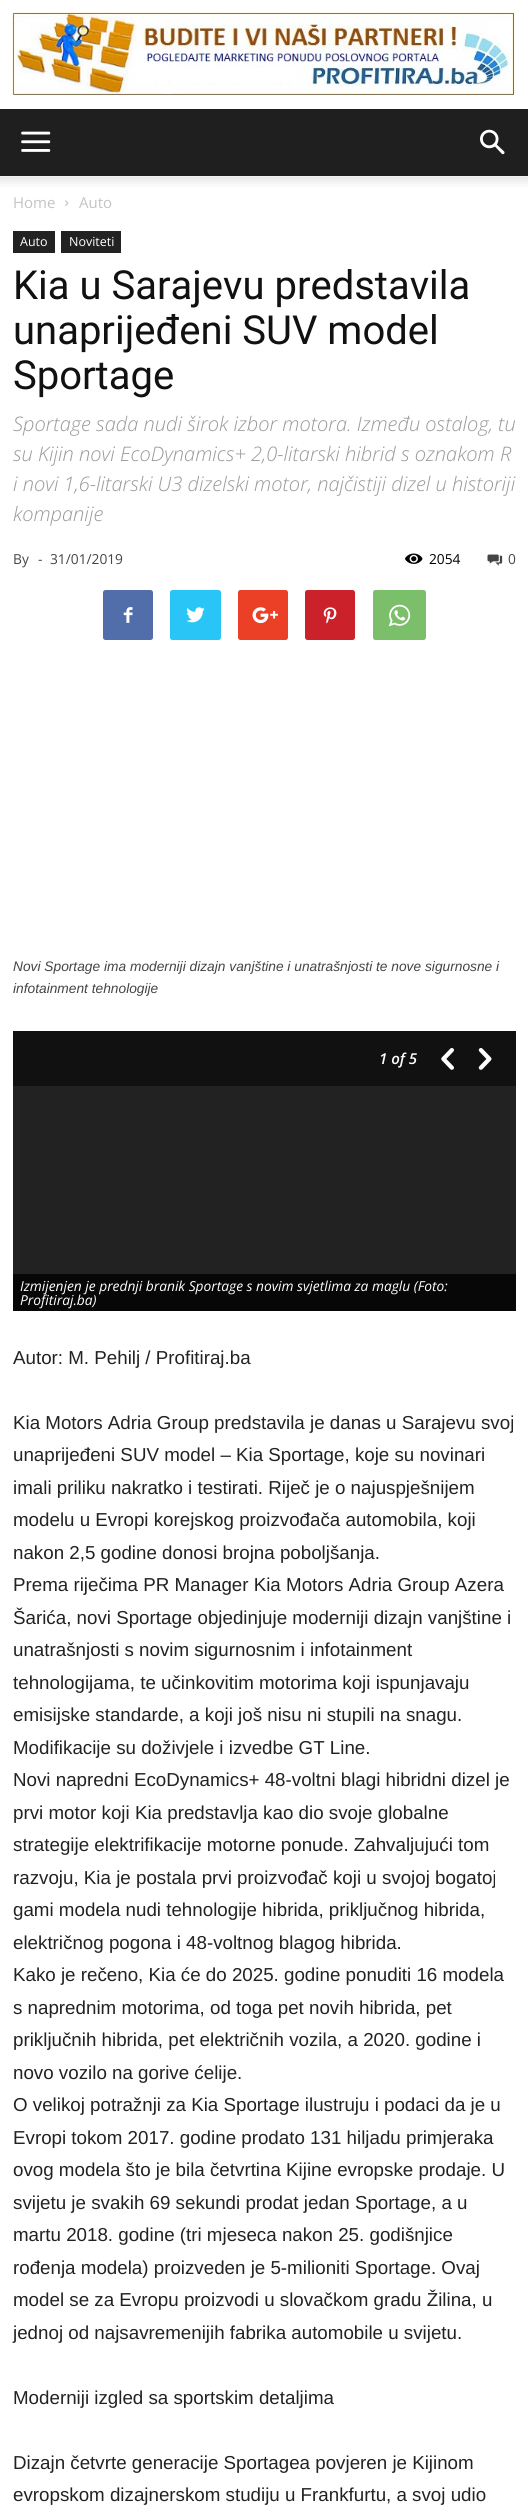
#include <cairo.h>
#include <math.h>
#include <stddef.h>

static cairo_t *c;
static void C(unsigned color){cairo_set_source_rgb(c, (color >> 16) / 255.0, (color >> 8 & 255) / 255.0, (color & 255) / 255.0);}
static void F(const char *family, double size, int italic, int bold){cairo_select_font_face(c, family, italic ? CAIRO_FONT_SLANT_ITALIC : CAIRO_FONT_SLANT_NORMAL,bold ? CAIRO_FONT_WEIGHT_BOLD : CAIRO_FONT_WEIGHT_NORMAL);cairo_set_font_size(c, size);}
static void T(double x, double y, const char *s){cairo_move_to(c, x, y);cairo_show_text(c, s);}
static void R(double x, double y, double w, double h){cairo_rectangle(c, x, y, w, h);cairo_fill(c);}
static void Q(double x, double y, double w, double h, double r){cairo_new_sub_path(c);cairo_arc(c, x + w - r, y + h - r, r, 0, M_PI / 2);cairo_arc(c, x + r, y + h - r, r, M_PI / 2, M_PI);cairo_arc(c, x + r, y + r, r, M_PI, 1.5 * M_PI);cairo_arc(c, x + w - r, y + r, r, 1.5 * M_PI, 2 * M_PI);cairo_close_path(c);}
static void I(const char *path, double x, double y, double w, double h){cairo_surface_t *image = cairo_image_surface_create_from_png(path);cairo_save(c);cairo_set_source_surface(c, image, x, y);cairo_rectangle(c, x, y, w, h);cairo_fill(c);cairo_restore(c);cairo_surface_destroy(image);}
int main(void) {
cairo_surface_t *surface = cairo_image_surface_create(CAIRO_FORMAT_RGB24, 528, 2515);
c = cairo_create(surface);
cairo_font_options_t *options = cairo_font_options_create();
cairo_font_options_set_hint_metrics(options, CAIRO_HINT_METRICS_OFF);
cairo_font_options_set_hint_style(options, CAIRO_HINT_STYLE_NONE);
cairo_set_font_options(c, options);
cairo_set_miter_limit(c, 4);
C(0xffffff);
cairo_paint(c);
I("1.png",12,12,504,84);
C(0x1f1f1f);
R(0,109,528,67);
I("2.png",21,131,30,21);
I("3.png",480,129,25,26);
I("4.png",0,176,528,11);
F("Open Sans",15,0,0);
C(0xc3c3c3);
T(13,208,"Home");
I("5.png",65,200,4,6);
T(79,208,"Auto");
C(0x222222);
R(13,231,42,22);
F("Open Sans",12.5,0,0);
C(0xffffff);
T(20,246,"Auto");
C(0x222222);
R(61,231,60,22);
C(0xffffff);
T(69,246,"Noviteti");
F("Roboto",40,0,0);
C(0x111111);
T(13,299,"Kia u Sarajevu predstavila");
T(13,344,"unaprijeđeni SUV model");
T(13,389,"Sportage");
F("Open Sans Light",20,1,0);
C(0x999999);
T(13,431,"Sportage sada nudi širok izbor motora. Između ostalog, tu");
T(13,461,"su Kijin novi EcoDynamics+ 2,0-litarski hibrid s oznakom R");
T(13,491,"i novi 1,6-litarski U3 dizelski motor, najčistiji dizel u historiji");
T(13,521,"kompanije");
F("Open Sans",13.75,0,0);
C(0x444444);
T(13,564,"By");
T(38,564,"-");
T(50,564,"31/01/2019");
I("6.png",405,553,18,11);
C(0x000000);
T(429,564,"2054");
I("7.png",487,554,16,12);
C(0x444444);
T(508,564,"0");
C(0x516eab);
Q(103,590,50,50,2.5);
cairo_fill(c);
I("8.png",123,607,10,16);
C(0x29c5f6);
Q(170,590,51,50,2.5);
cairo_fill(c);
I("9.png",186,607,19,16);
C(0xeb4026);
Q(238,590,50,50,2.5);
cairo_fill(c);
I("10.png",252,607,26,17);
C(0xca212a);
Q(305,590,50,50,2.5);
cairo_fill(c);
I("11.png",323,607,14,17);
C(0x7bbf6a);
Q(373,590,53,50,2.5);
cairo_fill(c);
I("12.png",388,604,23,23);
F("Liberation Sans",13.75,1,0);
C(0x444444);
T(13,971,"Novi Sportage ima moderniji dizajn vanjštine i unatrašnjosti te nove sigurnosne i");
T(13,993,"infotainment tehnologije");
C(0x222222);
R(13,1086,503,188);
C(0x111111);
R(13,1031,503,55);
F("Open Sans SemiBold",15,1,0);
C(0xffffff);
T(379,1064,"1 of 5");
I("13.png",441,1048,13,22);
I("14.png",478,1048,14,22);
C(0x070707);
R(13,1274,503,37);
F("Open Sans",13.75,1,0);
C(0xffffff);
T(20,1291,"Izmijenjen je prednji branik Sportage s novim svjetlima za maglu (Foto:");
T(20,1305,"Profitiraj.ba)");
F("Liberation Sans",18.75,0,0);
C(0x222222);
T(13,1364,"Autor: M. Pehilj / Profitiraj.ba");
T(13,1429,"Kia Motors Adria Group predstavila je danas u Sarajevu svoj");
T(13,1461,"unaprijeđeni SUV model – Kia Sportage, koje su novinari");
T(13,1494,"imali priliku nakratko i testirati. Riječ je o najuspješnijem");
T(13,1526,"modelu u Evropi korejskog proizvođača automobila, koji");
T(13,1559,"nakon 2,5 godine donosi brojna poboljšanja.");
T(13,1591,"Prema riječima PR Manager Kia Motors Adria Group Azera");
T(13,1624,"Šarića, novi Sportage objedinjuje moderniji dizajn vanjštine i");
T(13,1656,"unatrašnjosti s novim sigurnosnim i infotainment");
T(13,1689,"tehnologijama, te učinkovitim motorima koji ispunjavaju");
T(13,1721,"emisijske standarde, a koji još nisu ni stupili na snagu.");
T(13,1754,"Modifikacije su doživjele i izvedbe GT Line.");
T(13,1786,"Novi napredni EcoDynamics+ 48-voltni blagi hibridni dizel je");
T(13,1819,"prvi motor koji Kia predstavlja kao dio svoje globalne");
T(13,1851,"strategije elektrifikacije motorne ponude. Zahvaljujući tom");
T(13,1884,"razvoju, Kia je postala prvi proizvođač koji u svojoj bogatoj");
T(13,1916,"gami modela nudi tehnologije hibrida, priključnog hibrida,");
T(13,1949,"električnog pogona i 48-voltnog blagog hibrida.");
T(13,1981,"Kako je rečeno, Kia će do 2025. godine ponuditi 16 modela");
T(13,2014,"s naprednim motorima, od toga pet novih hibrida, pet");
T(13,2046,"priključnih hibrida, pet električnih vozila, a 2020. godine i");
T(13,2079,"novo vozilo na gorive ćelije.");
T(13,2111,"O velikoj potražnji za Kia Sportage ilustruju i podaci da je u");
T(13,2144,"Evropi tokom 2017. godine prodato 131 hiljadu primjeraka");
T(13,2176,"ovog modela što je bila četvrtina Kijine evropske prodaje. U");
T(13,2209,"svijetu je svakih 69 sekundi prodat jedan Sportage, a u");
T(13,2241,"martu 2018. godine (tri mjeseca nakon 25. godišnjice");
T(13,2274,"rođenja modela) proizveden je 5-milioniti Sportage. Ovaj");
T(13,2306,"model se za Evropu proizvodi u slovačkom gradu Žilina, u");
T(13,2339,"jednoj od najsavremenijih fabrika automobile u svijetu.");
T(13,2404,"Moderniji izgled sa sportskim detaljima");
T(13,2469,"Dizajn četvrte generacije Sportagea povjeren je Kijinom");
T(13,2501,"evropskom dizajnerskom studiju u Frankfurtu, a svoj udio");
cairo_surface_write_to_png(surface, "o.png");
cairo_font_options_destroy(options);
cairo_destroy(c);
cairo_surface_destroy(surface);
return 0;
}
